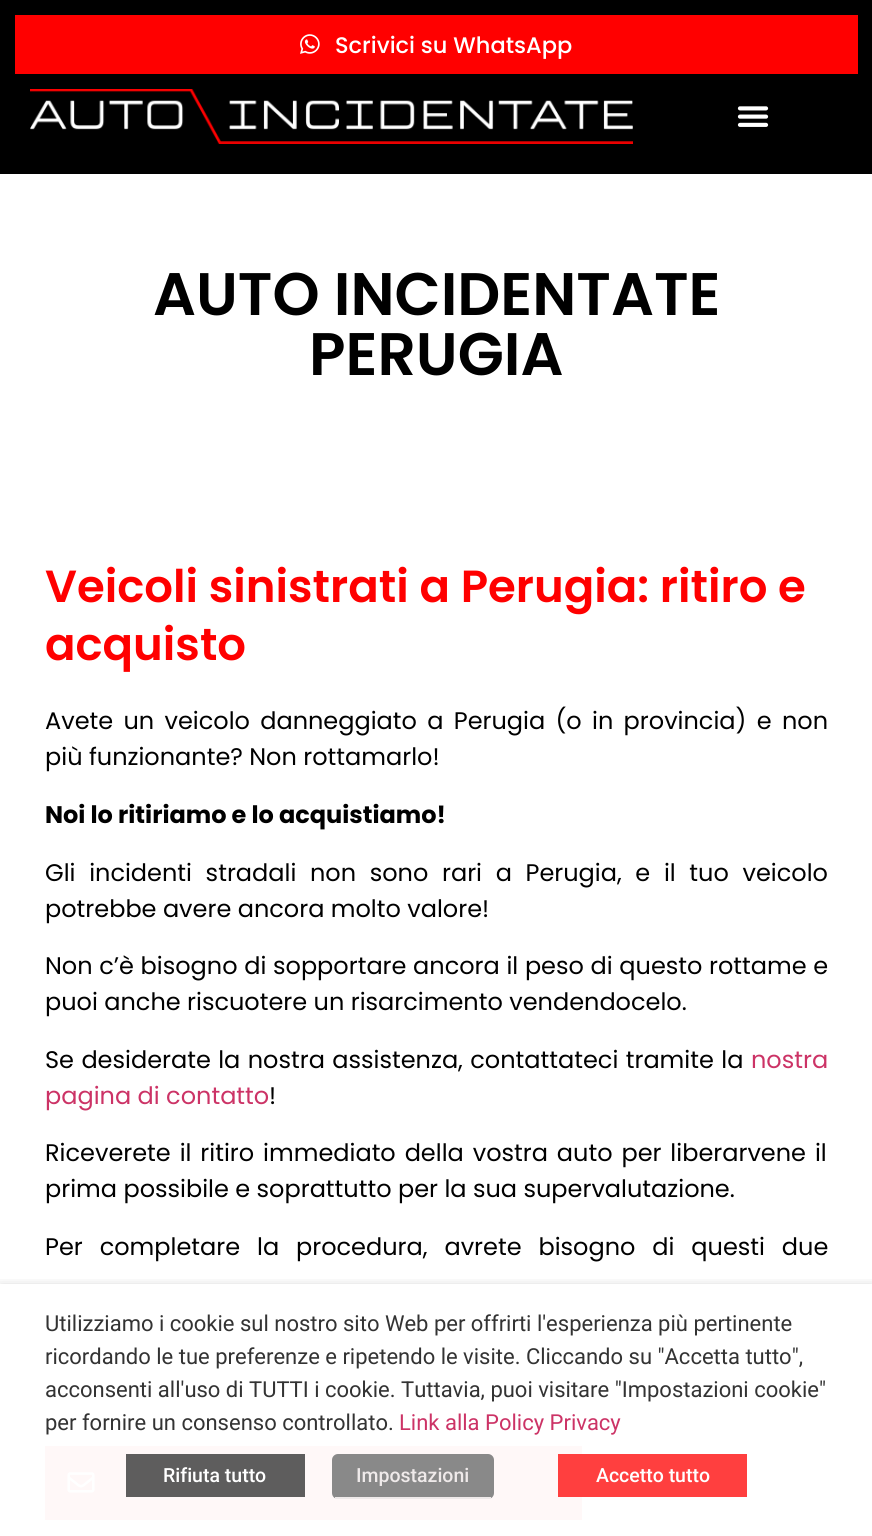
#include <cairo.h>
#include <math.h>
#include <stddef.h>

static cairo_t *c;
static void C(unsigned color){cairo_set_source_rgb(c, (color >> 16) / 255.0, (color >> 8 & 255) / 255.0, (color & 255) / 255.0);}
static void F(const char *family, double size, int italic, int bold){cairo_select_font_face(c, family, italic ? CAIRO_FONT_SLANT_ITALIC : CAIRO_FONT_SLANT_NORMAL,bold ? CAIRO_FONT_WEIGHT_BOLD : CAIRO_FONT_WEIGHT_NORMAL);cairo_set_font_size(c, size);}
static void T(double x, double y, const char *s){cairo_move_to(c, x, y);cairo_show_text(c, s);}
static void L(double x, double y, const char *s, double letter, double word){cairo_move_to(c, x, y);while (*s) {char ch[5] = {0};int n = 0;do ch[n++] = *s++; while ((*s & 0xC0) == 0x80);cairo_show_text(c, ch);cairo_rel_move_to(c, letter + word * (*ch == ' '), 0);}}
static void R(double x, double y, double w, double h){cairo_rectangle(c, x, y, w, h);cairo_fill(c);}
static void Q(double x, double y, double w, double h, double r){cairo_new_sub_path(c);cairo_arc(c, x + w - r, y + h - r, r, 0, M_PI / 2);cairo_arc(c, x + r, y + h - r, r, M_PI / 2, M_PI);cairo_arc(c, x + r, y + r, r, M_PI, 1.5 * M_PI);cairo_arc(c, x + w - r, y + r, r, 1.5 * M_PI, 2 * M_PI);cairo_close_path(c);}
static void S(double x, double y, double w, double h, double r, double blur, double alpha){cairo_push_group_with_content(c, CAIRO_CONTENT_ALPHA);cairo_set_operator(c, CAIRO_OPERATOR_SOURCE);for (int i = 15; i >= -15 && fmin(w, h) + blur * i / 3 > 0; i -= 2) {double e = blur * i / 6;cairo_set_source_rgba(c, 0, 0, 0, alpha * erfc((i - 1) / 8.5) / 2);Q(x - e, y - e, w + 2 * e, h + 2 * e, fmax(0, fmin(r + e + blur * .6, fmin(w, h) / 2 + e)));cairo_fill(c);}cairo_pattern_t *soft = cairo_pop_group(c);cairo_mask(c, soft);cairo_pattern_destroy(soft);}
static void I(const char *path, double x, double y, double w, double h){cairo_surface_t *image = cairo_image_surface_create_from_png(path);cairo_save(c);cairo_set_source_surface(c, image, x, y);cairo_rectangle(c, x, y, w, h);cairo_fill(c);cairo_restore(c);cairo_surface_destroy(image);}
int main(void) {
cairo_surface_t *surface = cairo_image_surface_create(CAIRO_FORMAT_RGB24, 872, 1536);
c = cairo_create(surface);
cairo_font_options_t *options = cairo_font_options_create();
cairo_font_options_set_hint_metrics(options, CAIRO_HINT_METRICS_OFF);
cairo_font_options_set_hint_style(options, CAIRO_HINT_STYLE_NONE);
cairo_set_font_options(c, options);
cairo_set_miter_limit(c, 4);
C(0xffffff);
cairo_paint(c);
C(0x000000);
R(0,0,872,174);
C(0xff0000);
R(15,15,843,59);
I("1.png",300,34,20,20);
F("Poppins Medium",22.5,0,0);
C(0xffffff);
T(335,53,"Scrivici su WhatsApp");
I("2.png",30,89,603,55);
I("3.png",737,106,32,21);
F("Poppins SemiBold",60,0,0);
C(0x000000);
T(153,315,"AUTO INCIDENTATE");
T(309,375,"PERUGIA");
F("Poppins SemiBold",45,0,0);
C(0xff0000);
T(45,602,"Veicoli sinistrati a Perugia: ritiro e");
T(45,660,"acquisto");
F("Poppins",24,0,0);
C(0x000000);
L(45,729,"Avete un veicolo danneggiato a Perugia (o in provincia) e non",0,3.9);
T(45,765,"più funzionante? Non rottamarlo!");
F("Poppins",24,0,1);
T(45,823,"Noi lo ritiriamo e lo acquistiamo!");
F("Poppins",24,0,0);
L(45,881,"Gli incidenti stradali non sono rari a Perugia, e il tuo veicolo",0,7.25);
T(45,917,"potrebbe avere ancora molto valore!");
L(45,974,"Non c’è bisogno di sopportare ancora il peso di questo rottame e",0,.25);
T(45,1010,"puoi anche riscuotere un risarcimento vendendocelo.");
L(45,1068,"Se desiderate la nostra assistenza, contattateci tramite la",0,1);
C(0xcc3366);
T(751,1068,"nostra");
T(45,1104,"pagina di contatto");
C(0x000000);
T(269,1104,"!");
L(45,1161,"Riceverete il ritiro immediato della vostra auto per liberarvene il",0,2.5);
T(45,1197,"prima possibile e soprattutto per la sua supervalutazione.");
L(45,1255,"Per completare la procedura, avrete bisogno di questi due",0,10.5);
C(0xff0000);
R(45,1446,537,74);
I("4.png",67,1472,28,21);
cairo_save(c);
cairo_rectangle(c,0,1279,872,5);
cairo_clip(c);
C(0x000000);
S(0,1292,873,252,0,7.5,.5);
cairo_restore(c);
cairo_set_source_rgba(c,1,1,1,0.97);
R(45,1446,537,74);
F("Roboto",22,0,0);
C(0x333333);
T(45,1331,"Utilizziamo i cookie sul nostro sito Web per offrirti l'esperienza più pertinente");
T(45,1364,"ricordando le tue preferenze e ripetendo le visite. Cliccando su \"Accetta tutto\",");
T(45,1397,"acconsenti all'uso di TUTTI i cookie. Tuttavia, puoi visitare \"Impostazioni cookie\"");
T(45,1430,"per fornire un consenso controllato.");
C(0xcc3366);
T(399,1430,"Link alla Policy Privacy");
C(0x5e5d5d);
R(126,1454,179,43);
F("Roboto Medium",19.5,0,0);
C(0xffffff);
T(163,1482,"Rifiuta tutto");
C(0x898989);
Q(332,1454,162,45,6);
cairo_fill(c);
C(0xefeaea);
R(335,1497,156,2);
T(356,1482,"Impostazioni");
C(0xff3f3f);
R(558,1454,189,43);
C(0xffffff);
T(596,1482,"Accetto tutto");
cairo_surface_write_to_png(surface, "o.png");
cairo_font_options_destroy(options);
cairo_destroy(c);
cairo_surface_destroy(surface);
return 0;
}
